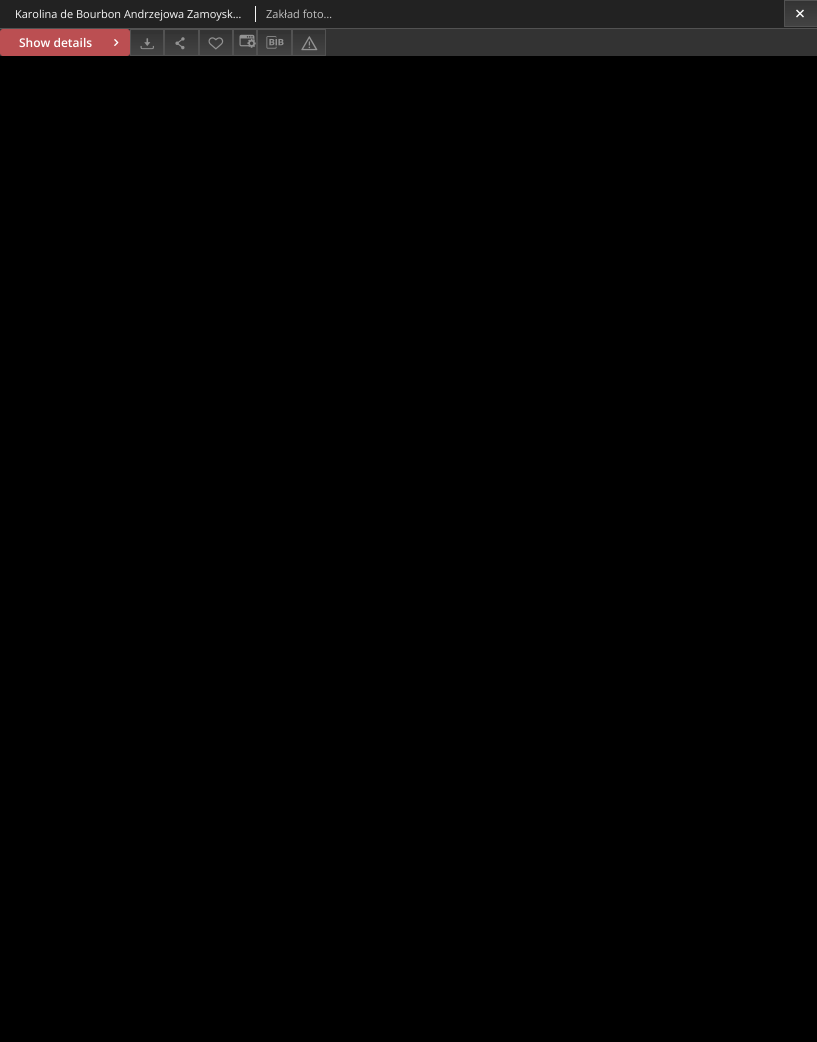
#include <cairo.h>
#include <math.h>
#include <stddef.h>

static cairo_t *c;
static void C(unsigned color){cairo_set_source_rgb(c, (color >> 16) / 255.0, (color >> 8 & 255) / 255.0, (color & 255) / 255.0);}
static void F(const char *family, double size, int italic, int bold){cairo_select_font_face(c, family, italic ? CAIRO_FONT_SLANT_ITALIC : CAIRO_FONT_SLANT_NORMAL,bold ? CAIRO_FONT_WEIGHT_BOLD : CAIRO_FONT_WEIGHT_NORMAL);cairo_set_font_size(c, size);}
static void T(double x, double y, const char *s){cairo_move_to(c, x, y);cairo_show_text(c, s);}
static void R(double x, double y, double w, double h){cairo_rectangle(c, x, y, w, h);cairo_fill(c);}
static void Q(double x, double y, double w, double h, double r){cairo_new_sub_path(c);cairo_arc(c, x + w - r, y + h - r, r, 0, M_PI / 2);cairo_arc(c, x + r, y + h - r, r, M_PI / 2, M_PI);cairo_arc(c, x + r, y + r, r, M_PI, 1.5 * M_PI);cairo_arc(c, x + w - r, y + r, r, 1.5 * M_PI, 2 * M_PI);cairo_close_path(c);}
static void I(const char *path, double x, double y, double w, double h){cairo_surface_t *image = cairo_image_surface_create_from_png(path);cairo_save(c);cairo_set_source_surface(c, image, x, y);cairo_rectangle(c, x, y, w, h);cairo_fill(c);cairo_restore(c);cairo_surface_destroy(image);}
int main(void) {
cairo_surface_t *surface = cairo_image_surface_create(CAIRO_FORMAT_RGB24, 817, 1042);
c = cairo_create(surface);
cairo_font_options_t *options = cairo_font_options_create();
cairo_font_options_set_hint_metrics(options, CAIRO_HINT_METRICS_OFF);
cairo_font_options_set_hint_style(options, CAIRO_HINT_STYLE_NONE);
cairo_set_font_options(c, options);
cairo_set_miter_limit(c, 4);
cairo_pattern_t *gradient;
C(0x333333);
cairo_paint(c);
C(0x222222);
R(0,0,817,28);
C(0x525252);
R(0,28,817,1);
C(0xf5f5f5);
R(255,6,1,16);
F("Open Sans",11,0,0);
C(0xf9f9f9);
T(15,18,"Karolina de Bourbon Andrzejowa Zamoysk…");
C(0xc1c1c1);
T(266,18,"Zakład foto…");
gradient = cairo_pattern_create_linear(801,1,801,26);
cairo_pattern_add_color_stop_rgba(gradient,0,0.2,0.2,0.2,1);
cairo_pattern_add_color_stop_rgba(gradient,1,0.263,0.263,0.263,1);
cairo_set_source(c,gradient);
cairo_pattern_destroy(gradient);
R(785,1,32,25);
C(0x525252);
R(784,0,33,1);
R(784,26,33,1);
R(784,0,1,27);
C(0xffffff);
cairo_new_path(c);
cairo_move_to(c,796,16.5);
cairo_line_to(c,803,9.5);
cairo_line_to(c,804,10.5);
cairo_line_to(c,797,17.5);
cairo_close_path(c);
cairo_fill(c);
cairo_new_path(c);
cairo_move_to(c,797,9.5);
cairo_line_to(c,804,16.5);
cairo_line_to(c,803,17.5);
cairo_line_to(c,796,10.5);
cairo_close_path(c);
cairo_fill(c);
C(0xbb4f52);
Q(.5,29.5,129,26,2.5);
cairo_fill_preserve(c);
cairo_set_line_width(c,1);
cairo_stroke(c);
F("Open Sans SemiBold",12,0,0);
C(0xffffff);
T(19,47,"Show details");
I("1.png",114,39,5,7);
gradient = cairo_pattern_create_linear(147,30,147,55);
cairo_pattern_add_color_stop_rgba(gradient,0,0.2,0.2,0.2,1);
cairo_pattern_add_color_stop_rgba(gradient,1,0.263,0.263,0.263,1);
cairo_set_source(c,gradient);
cairo_pattern_destroy(gradient);
R(131,34,32,21);
cairo_rectangle(c,130.5,29.5,33,26);
C(0x525252);
cairo_stroke(c);
I("2.png",140,38,14,12);
gradient = cairo_pattern_create_linear(182,30,182,55);
cairo_pattern_add_color_stop_rgba(gradient,0,0.2,0.2,0.2,1);
cairo_pattern_add_color_stop_rgba(gradient,1,0.263,0.263,0.263,1);
cairo_set_source(c,gradient);
cairo_pattern_destroy(gradient);
R(165,34,33,21);
cairo_rectangle(c,164.5,29.5,34,26);
C(0x525252);
cairo_stroke(c);
I("3.png",175,37,10,13);
gradient = cairo_pattern_create_linear(216,30,216,55);
cairo_pattern_add_color_stop_rgba(gradient,0,0.2,0.2,0.2,1);
cairo_pattern_add_color_stop_rgba(gradient,1,0.263,0.263,0.263,1);
cairo_set_source(c,gradient);
cairo_pattern_destroy(gradient);
R(200,34,32,21);
cairo_rectangle(c,199.5,29.5,33,26);
C(0x525252);
cairo_stroke(c);
I("4.png",208,37,16,13);
gradient = cairo_pattern_create_linear(245,30,245,55);
cairo_pattern_add_color_stop_rgba(gradient,0,0.2,0.2,0.2,1);
cairo_pattern_add_color_stop_rgba(gradient,1,0.263,0.263,0.263,1);
cairo_set_source(c,gradient);
cairo_pattern_destroy(gradient);
R(234,34,22,21);
cairo_rectangle(c,233.5,29.5,23,26);
C(0x525252);
cairo_stroke(c);
I("5.png",239,34,17,14);
gradient = cairo_pattern_create_linear(275,30,275,55);
cairo_pattern_add_color_stop_rgba(gradient,0,0.2,0.2,0.2,1);
cairo_pattern_add_color_stop_rgba(gradient,1,0.263,0.263,0.263,1);
cairo_set_source(c,gradient);
cairo_pattern_destroy(gradient);
R(258,34,33,21);
cairo_rectangle(c,257.5,29.5,34,26);
C(0x525252);
cairo_stroke(c);
I("6.png",266,36,18,13);
gradient = cairo_pattern_create_linear(309,30,309,55);
cairo_pattern_add_color_stop_rgba(gradient,0,0.2,0.2,0.2,1);
cairo_pattern_add_color_stop_rgba(gradient,1,0.263,0.263,0.263,1);
cairo_set_source(c,gradient);
cairo_pattern_destroy(gradient);
R(293,34,32,21);
cairo_rectangle(c,292.5,29.5,33,26);
C(0x525252);
cairo_stroke(c);
I("7.png",301,36,17,15);
C(0x000000);
R(0,56,817,986);
cairo_surface_write_to_png(surface, "o.png");
cairo_font_options_destroy(options);
cairo_destroy(c);
cairo_surface_destroy(surface);
return 0;
}
